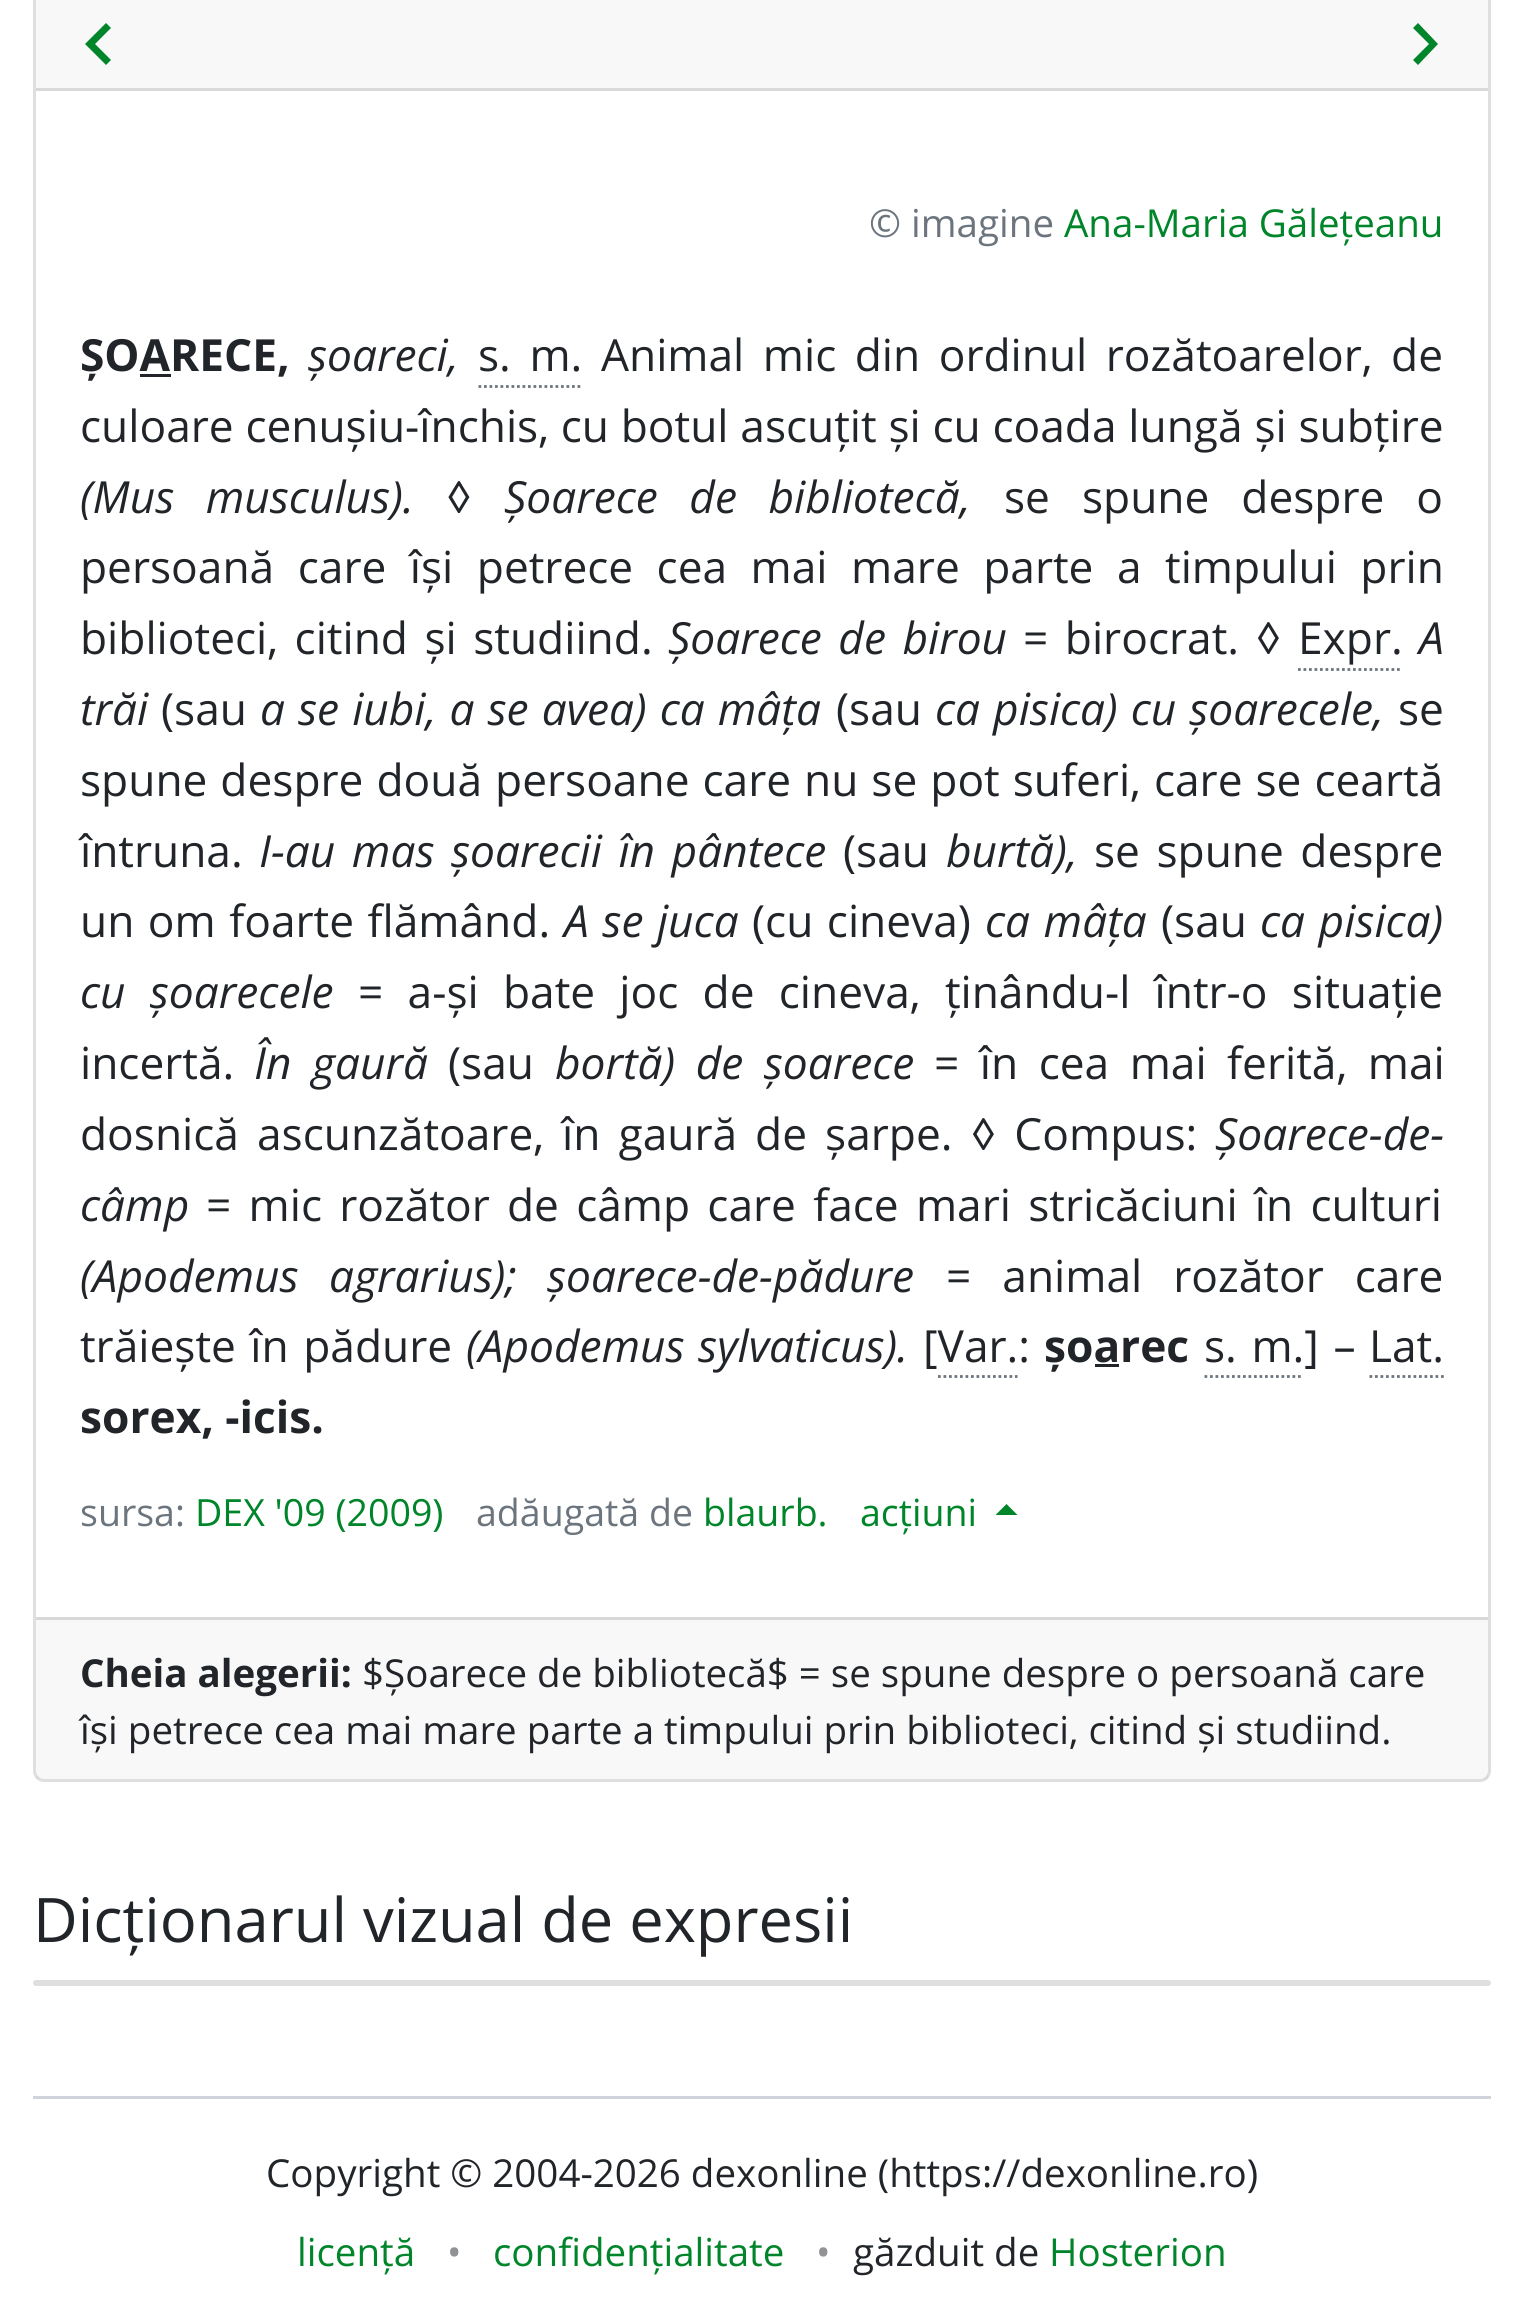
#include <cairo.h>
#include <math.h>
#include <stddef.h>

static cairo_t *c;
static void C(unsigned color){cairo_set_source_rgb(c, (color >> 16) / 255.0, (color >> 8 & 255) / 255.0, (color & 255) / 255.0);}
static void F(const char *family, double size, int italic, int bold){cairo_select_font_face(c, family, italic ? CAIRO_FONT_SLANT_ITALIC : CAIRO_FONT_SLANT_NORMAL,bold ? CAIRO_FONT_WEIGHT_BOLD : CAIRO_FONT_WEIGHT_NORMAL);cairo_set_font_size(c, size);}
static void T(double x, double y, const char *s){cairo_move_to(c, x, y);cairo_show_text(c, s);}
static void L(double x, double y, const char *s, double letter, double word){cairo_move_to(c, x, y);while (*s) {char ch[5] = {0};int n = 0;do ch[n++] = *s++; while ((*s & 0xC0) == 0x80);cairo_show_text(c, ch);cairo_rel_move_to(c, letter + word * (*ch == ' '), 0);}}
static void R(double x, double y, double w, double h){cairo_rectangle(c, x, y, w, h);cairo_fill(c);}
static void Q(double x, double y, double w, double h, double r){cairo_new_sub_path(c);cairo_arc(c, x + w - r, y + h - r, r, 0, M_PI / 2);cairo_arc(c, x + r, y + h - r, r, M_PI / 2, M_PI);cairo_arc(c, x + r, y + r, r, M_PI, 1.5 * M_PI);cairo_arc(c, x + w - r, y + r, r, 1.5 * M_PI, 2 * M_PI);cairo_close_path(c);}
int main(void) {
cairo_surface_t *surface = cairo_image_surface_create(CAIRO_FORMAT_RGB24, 1521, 2323);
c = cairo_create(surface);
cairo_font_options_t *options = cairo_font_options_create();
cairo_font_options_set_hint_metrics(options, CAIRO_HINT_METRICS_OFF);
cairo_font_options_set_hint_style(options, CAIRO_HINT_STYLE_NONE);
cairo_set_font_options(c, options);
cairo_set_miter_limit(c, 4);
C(0xffffff);
cairo_paint(c);
Q(34.5,-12.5,1455,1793,9.5);
C(0xdfdfdf);
cairo_set_line_width(c,3);
cairo_stroke(c);
C(0xf8f8f8);
R(36,0,1452,88);
C(0xd9d9d9);
R(36,88,1452,3);
C(0x00852a);
cairo_new_path(c);
cairo_move_to(c,111,28);
cairo_line_to(c,95,44);
cairo_line_to(c,111,60);
cairo_line_to(c,106,65);
cairo_line_to(c,85,44);
cairo_line_to(c,106,23);
cairo_close_path(c);
cairo_fill(c);
cairo_new_path(c);
cairo_move_to(c,1418,23);
cairo_line_to(c,1438,44);
cairo_line_to(c,1418,65);
cairo_line_to(c,1413,60);
cairo_line_to(c,1429,44);
cairo_line_to(c,1413,28);
cairo_close_path(c);
cairo_fill(c);
F("Open Sans",38.5,0,0);
C(0x6c757d);
T(869,237,"© imagine");
C(0x00852a);
T(1064,237,"Ana-Maria Gălețeanu");
F("Open Sans",44.25,0,1);
C(0x212529);
T(80,371,"ȘOARECE,");
R(140,374,31,3);
F("Open Sans",44.25,1,0);
T(308,371,"șoareci,");
F("Open Sans",44.25,0,0);
L(478,371,"s. m.",0,7);
cairo_new_path(c);
cairo_move_to(c,478.5,386.5);
cairo_line_to(c,583,386.5);
C(0x6c757d);
cairo_set_line_width(c,2.8);
cairo_set_dash(c,(double[]){2.75,2.75},2,0);
cairo_stroke(c);
C(0x212529);
L(601,371,"Animal mic din ordinul rozătoarelor, de",0,7);
L(80,442,"culoare cenușiu-închis, cu botul ascuțit și cu coada lungă și subțire",0,.25);
F("Open Sans",44.25,1,0);
L(80,513,"(Mus musculus).",0,20);
F("Open Sans",44.25,0,0);
T(446,513,"◊");
F("Open Sans",44.25,1,0);
L(504,513,"Șoarece de bibliotecă,",0,20);
F("Open Sans",44.25,0,0);
L(1004,513,"se spune despre o",0,20.5);
L(80,583,"persoană care își petrece cea mai mare parte a timpului prin",0,12);
L(80,654,"biblioteci, citind și studiind.",0,5);
F("Open Sans",44.25,1,0);
L(668,654,"Șoarece de birou",0,5);
F("Open Sans",44.25,0,0);
L(1023,654,"= birocrat. ◊",0,5);
T(1298,654,"Expr.");
cairo_new_path(c);
cairo_move_to(c,1298,669.5);
cairo_line_to(c,1402.5,669.5);
C(0x6c757d);
cairo_stroke(c);
F("Open Sans",44.25,1,0);
C(0x212529);
T(1419,654,"A");
T(80,725,"trăi");
F("Open Sans",44.25,0,0);
T(161,725,"(sau");
F("Open Sans",44.25,1,0);
L(260,725,"a se iubi, a se avea) ca mâța",0,1.5);
F("Open Sans",44.25,0,0);
T(836,725,"(sau");
F("Open Sans",44.25,1,0);
L(935,725,"ca pisica) cu șoarecele,",0,1.5);
F("Open Sans",44.25,0,0);
T(1398,725,"se");
L(80,796,"spune despre două persoane care nu se pot suferi, care se ceartă",0,1.5);
T(80,867,"întruna.");
F("Open Sans",44.25,1,0);
L(259,867,"I-au mas șoarecii în pântece",0,5);
F("Open Sans",44.25,0,0);
T(843,867,"(sau");
F("Open Sans",44.25,1,0);
T(946,867,"burtă),");
F("Open Sans",44.25,0,0);
L(1094,867,"se spune despre",0,5);
L(80,937,"un om foarte flămând.",0,2);
F("Open Sans",44.25,1,0);
L(564,937,"A se juca",0,2);
F("Open Sans",44.25,0,0);
L(752,937,"(cu cineva)",0,2);
F("Open Sans",44.25,1,0);
L(985,937,"ca mâța",0,2);
F("Open Sans",44.25,0,0);
T(1161,937,"(sau");
F("Open Sans",44.25,1,0);
L(1260,937,"ca pisica)",0,2);
L(80,1008,"cu șoarecele",0,12.75);
F("Open Sans",44.25,0,0);
L(358,1008,"= a-și bate joc de cineva, ținându-l într-o situație",0,12.75);
T(80,1079,"incertă.");
F("Open Sans",44.25,1,0);
L(254,1079,"În gaură",0,9);
F("Open Sans",44.25,0,0);
T(448,1079,"(sau");
F("Open Sans",44.25,1,0);
L(555,1079,"bortă) de șoarece",0,9);
F("Open Sans",44.25,0,0);
L(934,1079,"= în cea mai ferită, mai",0,9);
L(80,1150,"dosnică ascunzătoare, în gaură de șarpe. ◊ Compus:",0,6.5);
F("Open Sans",44.25,1,0);
T(1215,1150,"Șoarece-de-");
T(80,1221,"câmp");
F("Open Sans",44.25,0,0);
L(206,1221,"= mic rozător de câmp care face mari stricăciuni în culturi",0,5.75);
F("Open Sans",44.25,1,0);
L(80,1292,"(Apodemus agrarius); șoarece-de-pădure",0,19);
F("Open Sans",44.25,0,0);
L(946,1292,"= animal rozător care",0,19.5);
L(80,1362,"trăiește în pădure",0,3);
F("Open Sans",44.25,1,0);
L(466,1362,"(Apodemus sylvaticus).",0,2);
F("Open Sans",44.25,0,0);
T(923,1362,"[Var.:");
F("Open Sans",44.25,0,1);
T(1044,1362,"șoarec");
R(1095,1364,24,3);
F("Open Sans",44.25,0,0);
L(1204,1362,"s. m.] –",0,3);
cairo_new_path(c);
cairo_move_to(c,1204.5,1376.5);
cairo_line_to(c,1303.5,1376.5);
C(0x6c757d);
cairo_stroke(c);
C(0x212529);
T(1369,1362,"Lat.");
cairo_new_path(c);
cairo_move_to(c,1369.5,1376.5);
cairo_line_to(c,1444,1376.5);
C(0x6c757d);
cairo_stroke(c);
cairo_new_path(c);
cairo_move_to(c,938,1376.5);
cairo_line_to(c,1017.5,1376.5);
cairo_stroke(c);
F("Open Sans",44.25,0,1);
C(0x212529);
T(80,1433,"sorex, -icis.");
F("Open Sans",37.5,0,0);
C(0x6c757d);
T(80,1526,"sursa:");
C(0x00852a);
T(195,1526,"DEX '09 (2009)");
C(0x6c757d);
T(476,1526,"adăugată de");
C(0x00852a);
T(703,1526,"blaurb.");
T(860,1526,"acțiuni");
cairo_new_path(c);
cairo_move_to(c,1017.5,1515);
cairo_line_to(c,995.5,1515);
cairo_line_to(c,1006.5,1504);
cairo_close_path(c);
cairo_fill(c);
cairo_set_source_rgba(c,0,0,0,0.03);
R(36,1620,1452,159);
C(0xd8d8d8);
R(36,1617,1452,3);
F("Open Sans",38.5,0,1);
C(0x212529);
T(80,1687,"Cheia alegerii:");
F("Open Sans",38.5,0,0);
T(362,1687,"$Șoarece de bibliotecă$ = se spune despre o persoană care");
T(80,1744,"își petrece cea mai mare parte a timpului prin biblioteci, citind și studiind.");
F("Open Sans",61.4,0,0);
T(33,1942,"Dicționarul vizual de expresii");
C(0xdfdfdf);
Q(33,1980,1458,6,3);
cairo_fill(c);
C(0xced4da);
R(33,2096,1458,3);
F("Open Sans",38.5,0,0);
C(0x212529);
T(266,2187,"Copyright © 2004-2026 dexonline (https://dexonline.ro)");
C(0x00852a);
T(297,2266,"licență");
C(0x909294);
T(447,2266,"•");
C(0x00852a);
T(493,2266,"confidențialitate");
C(0x909294);
T(816,2266,"•");
C(0x212529);
T(853,2266,"găzduit de");
C(0x00852a);
T(1049,2266,"Hosterion");
cairo_surface_write_to_png(surface, "o.png");
cairo_font_options_destroy(options);
cairo_destroy(c);
cairo_surface_destroy(surface);
return 0;
}
